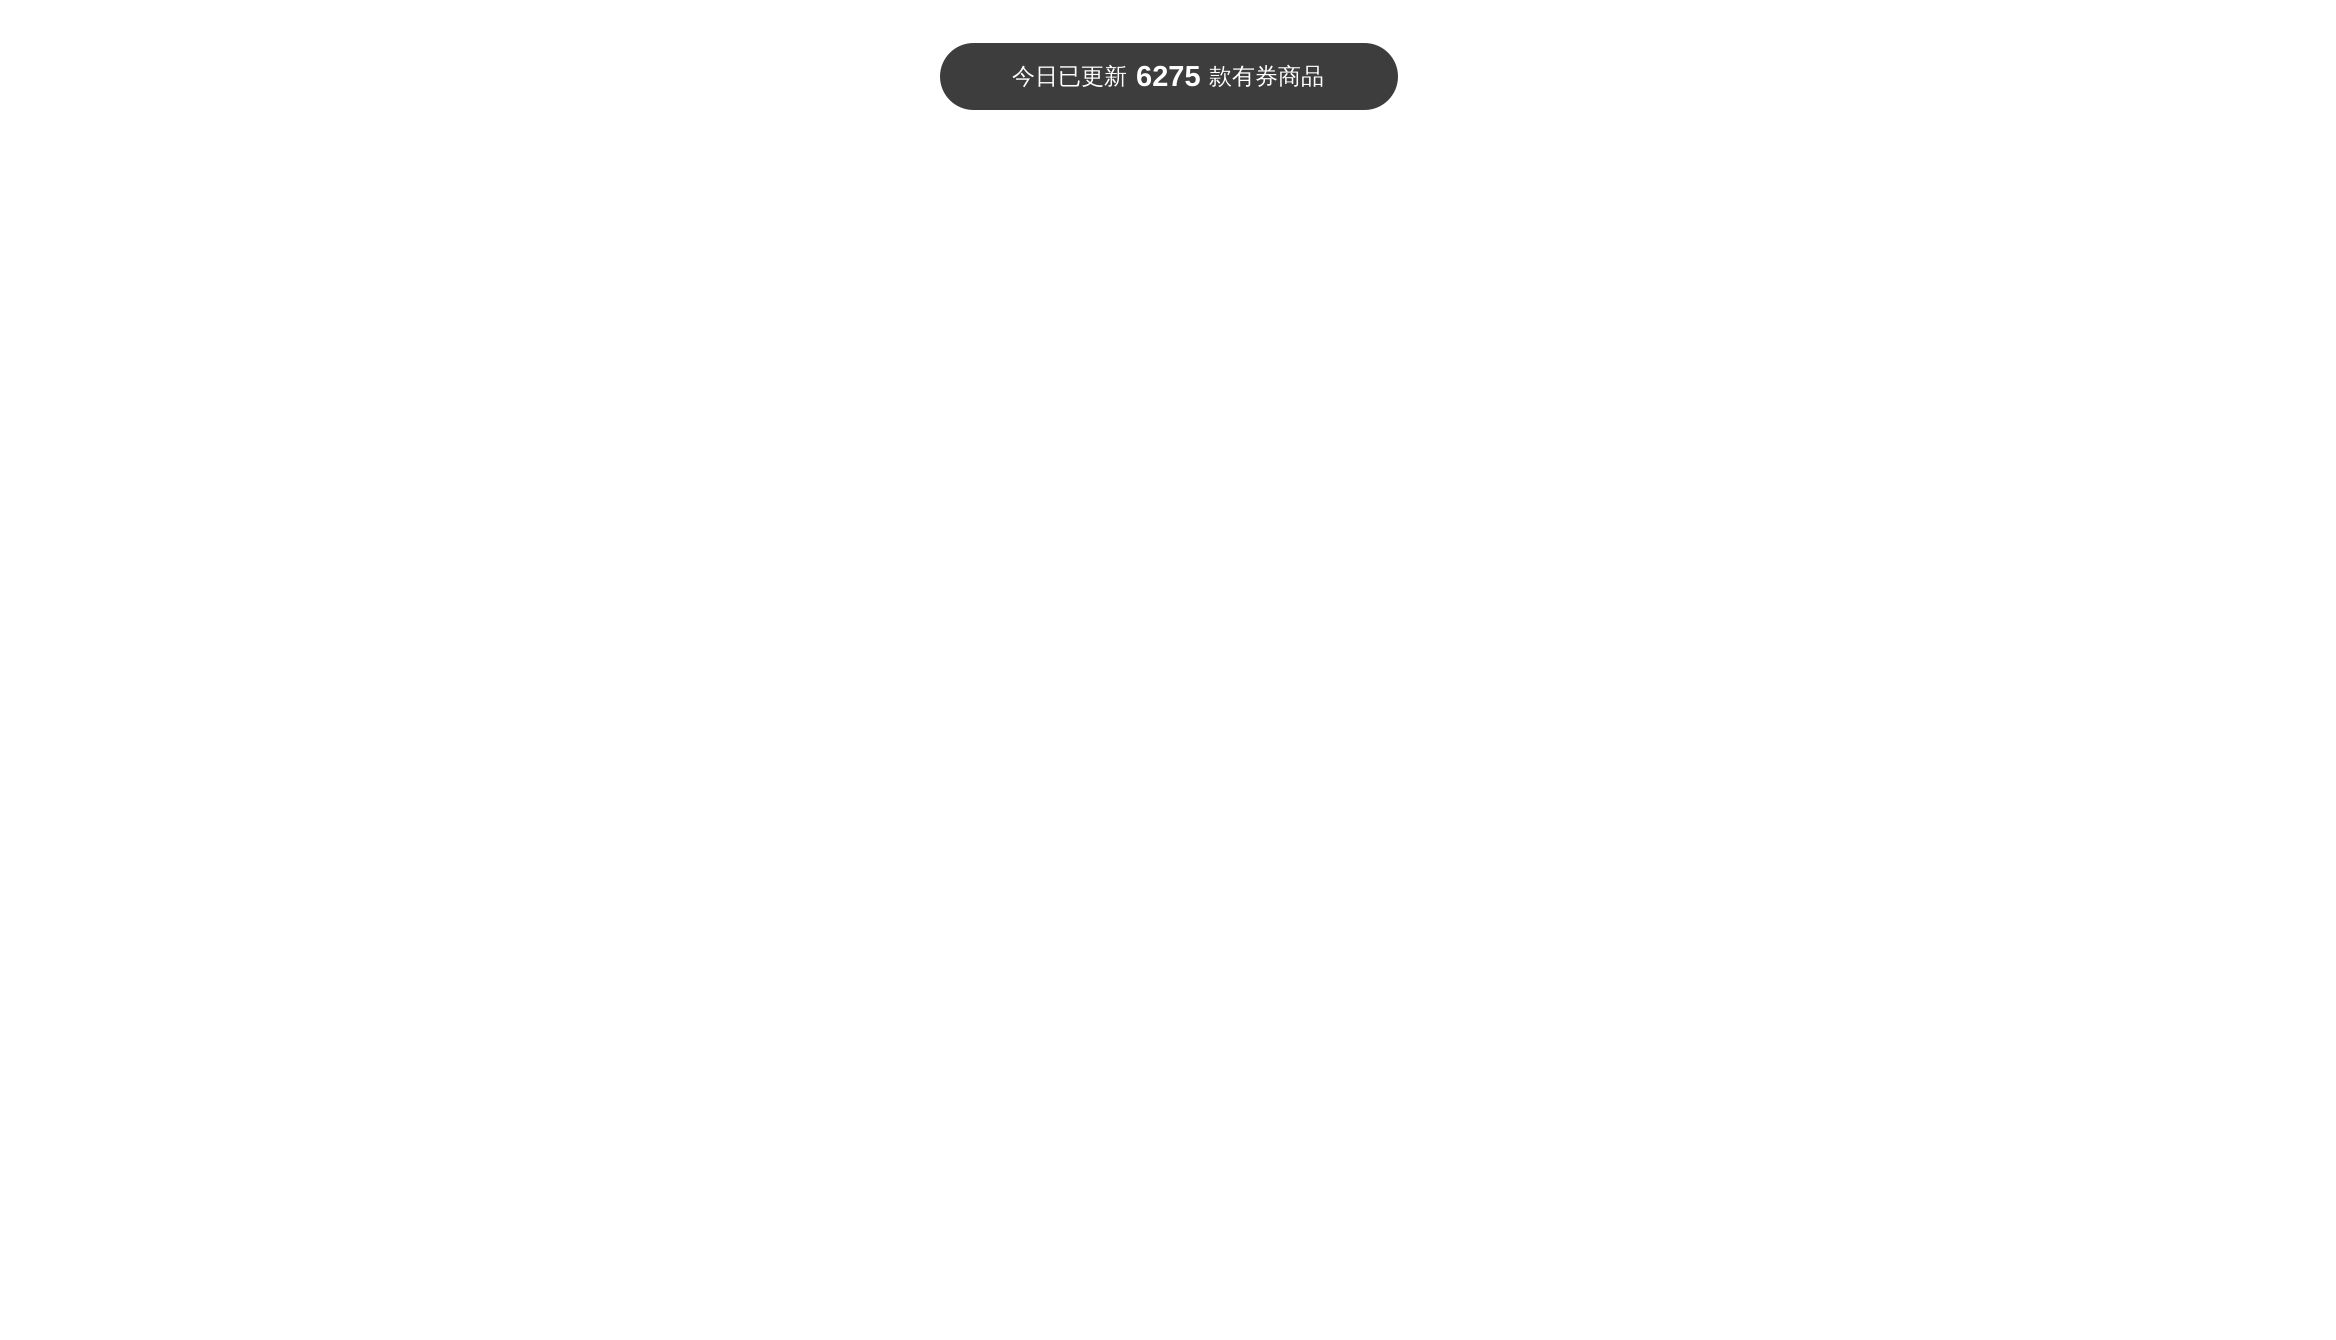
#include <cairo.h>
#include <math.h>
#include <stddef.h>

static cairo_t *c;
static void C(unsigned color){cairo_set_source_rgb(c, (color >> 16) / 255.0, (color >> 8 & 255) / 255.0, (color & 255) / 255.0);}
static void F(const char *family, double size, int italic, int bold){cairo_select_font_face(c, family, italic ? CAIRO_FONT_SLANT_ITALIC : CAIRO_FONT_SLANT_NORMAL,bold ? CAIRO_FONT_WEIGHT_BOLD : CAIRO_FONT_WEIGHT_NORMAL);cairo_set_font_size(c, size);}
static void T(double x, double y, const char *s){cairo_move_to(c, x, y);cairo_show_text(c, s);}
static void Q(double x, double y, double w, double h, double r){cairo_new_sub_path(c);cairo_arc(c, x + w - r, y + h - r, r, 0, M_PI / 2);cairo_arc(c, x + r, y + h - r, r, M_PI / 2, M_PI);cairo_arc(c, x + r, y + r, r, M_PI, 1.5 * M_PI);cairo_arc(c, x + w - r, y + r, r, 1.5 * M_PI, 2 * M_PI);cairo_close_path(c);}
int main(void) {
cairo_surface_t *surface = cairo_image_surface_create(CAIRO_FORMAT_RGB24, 2336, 1340);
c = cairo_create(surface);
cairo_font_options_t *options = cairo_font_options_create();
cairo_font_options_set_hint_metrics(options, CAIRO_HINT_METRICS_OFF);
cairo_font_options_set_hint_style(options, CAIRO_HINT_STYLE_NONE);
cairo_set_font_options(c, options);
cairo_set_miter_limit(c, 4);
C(0xffffff);
cairo_paint(c);
C(0x3d3d3d);
Q(940,43,458,67,33.5);
cairo_fill(c);
F("WenQuanYi Zen Hei Medium",23,0,0);
C(0xffffff);
T(1012,84,"今日已更新");
F("Liberation Sans",29,0,1);
T(1136,86,"6275");
F("WenQuanYi Zen Hei Medium",23,0,0);
T(1209,84,"款有券商品");
cairo_surface_write_to_png(surface, "o.png");
cairo_font_options_destroy(options);
cairo_destroy(c);
cairo_surface_destroy(surface);
return 0;
}
